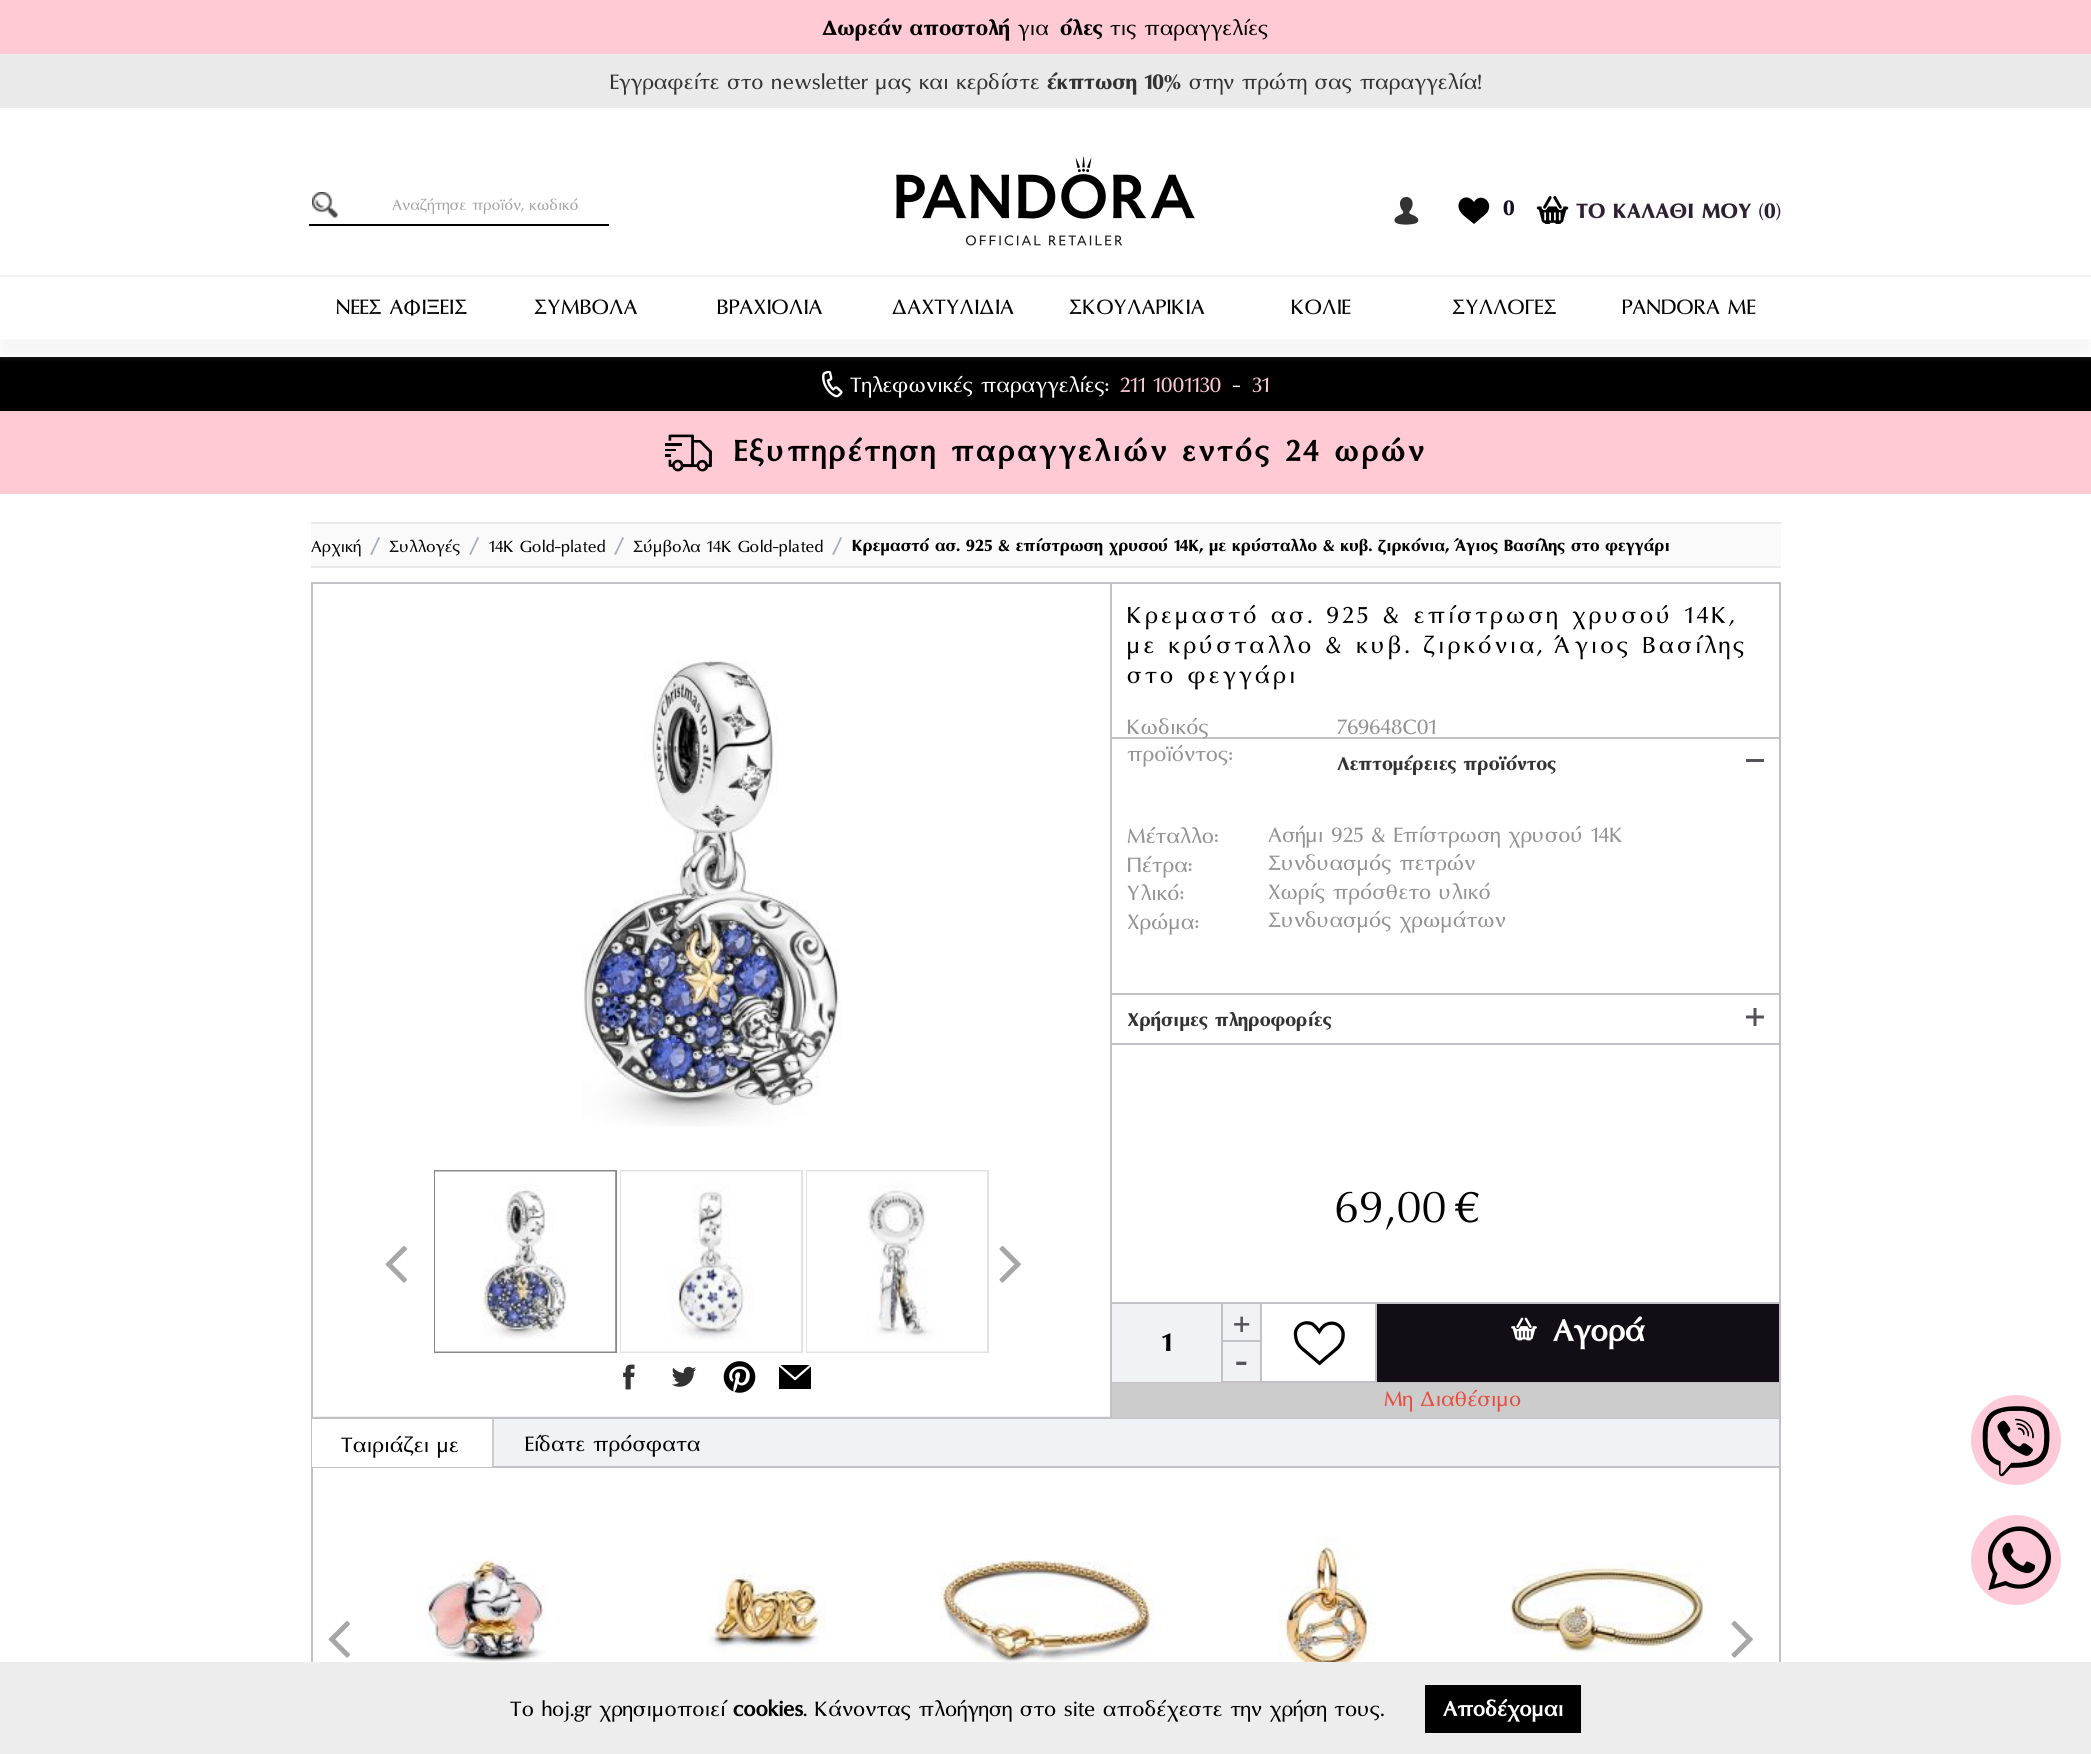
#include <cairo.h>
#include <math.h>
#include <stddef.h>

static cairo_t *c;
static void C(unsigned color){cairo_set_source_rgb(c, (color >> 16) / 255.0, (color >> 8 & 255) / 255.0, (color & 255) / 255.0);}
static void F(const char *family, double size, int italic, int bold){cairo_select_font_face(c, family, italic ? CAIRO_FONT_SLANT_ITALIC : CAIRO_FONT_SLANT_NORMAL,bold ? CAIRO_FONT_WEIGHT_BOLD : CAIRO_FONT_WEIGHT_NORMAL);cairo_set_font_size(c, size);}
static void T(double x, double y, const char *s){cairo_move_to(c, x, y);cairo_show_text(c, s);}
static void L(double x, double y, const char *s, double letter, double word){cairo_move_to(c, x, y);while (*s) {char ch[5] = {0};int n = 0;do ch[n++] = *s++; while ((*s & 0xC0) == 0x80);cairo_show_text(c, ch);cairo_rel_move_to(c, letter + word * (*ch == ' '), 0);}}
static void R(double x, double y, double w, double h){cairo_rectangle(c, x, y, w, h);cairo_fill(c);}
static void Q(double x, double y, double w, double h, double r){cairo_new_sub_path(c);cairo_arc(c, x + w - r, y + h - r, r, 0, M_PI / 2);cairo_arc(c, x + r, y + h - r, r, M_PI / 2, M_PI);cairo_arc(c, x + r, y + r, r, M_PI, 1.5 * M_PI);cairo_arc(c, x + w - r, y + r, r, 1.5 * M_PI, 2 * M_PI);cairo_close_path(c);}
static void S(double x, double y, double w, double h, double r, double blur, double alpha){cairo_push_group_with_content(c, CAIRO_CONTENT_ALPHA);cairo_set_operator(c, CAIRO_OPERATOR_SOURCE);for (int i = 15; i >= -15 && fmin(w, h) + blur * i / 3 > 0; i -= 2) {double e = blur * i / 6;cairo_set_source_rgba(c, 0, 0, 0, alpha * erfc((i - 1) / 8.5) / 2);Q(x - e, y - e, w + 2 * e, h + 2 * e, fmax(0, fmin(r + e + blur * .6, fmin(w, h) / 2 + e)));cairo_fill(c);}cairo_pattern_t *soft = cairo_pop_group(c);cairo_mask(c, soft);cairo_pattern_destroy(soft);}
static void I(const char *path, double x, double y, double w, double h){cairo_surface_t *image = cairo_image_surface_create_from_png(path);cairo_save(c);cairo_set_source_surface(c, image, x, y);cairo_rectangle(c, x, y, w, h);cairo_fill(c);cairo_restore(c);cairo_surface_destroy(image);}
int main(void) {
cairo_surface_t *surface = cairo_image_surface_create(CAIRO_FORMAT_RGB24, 2091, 1754);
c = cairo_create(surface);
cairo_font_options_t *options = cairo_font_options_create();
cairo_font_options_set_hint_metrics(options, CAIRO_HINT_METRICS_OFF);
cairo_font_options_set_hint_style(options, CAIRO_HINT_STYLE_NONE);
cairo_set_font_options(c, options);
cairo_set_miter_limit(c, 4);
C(0xffffff);
cairo_paint(c);
C(0xffcad4);
R(0,0,2091,54);
F("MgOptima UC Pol",27,0,1);
C(0x010101);
T(822,35,"Δωρεάν αποστολή");
F("MgOptima UC Pol",27,0,0);
T(1018,35,"για");
F("MgOptima UC Pol",27,0,1);
T(1060,35,"όλες");
F("MgOptima UC Pol",27,0,0);
T(1110,35,"τις παραγγελίες");
C(0xeaeaea);
R(0,54,2091,54);
C(0x333333);
T(610,89,"Εγγραφείτε στο newsletter μας και κερδίστε");
F("MgOptima UC Pol",27,0,1);
T(1047,89,"έκπτωση 10%");
F("MgOptima UC Pol",27,0,0);
T(1189,89,"στην πρώτη σας παραγγελία!");
I("1.png",312,192,26,26);
C(0x000000);
R(309,224,300,2);
F("MgOptima UC Pol",19.5,0,0);
C(0xa5a5a5);
T(392,210,"Αναζήτησε προϊόν, κωδικό");
I("2.png",896,156,299,90);
I("3.png",1394,197,25,28);
C(0x010101);
cairo_new_path(c);
cairo_move_to(c,1474,202);
cairo_curve_to(c,1480,192,1494,201,1487.5,212);
cairo_curve_to(c,1485.5,214.5,1483,216.5,1480.5,218.5);
cairo_line_to(c,1474,224);
cairo_line_to(c,1468.5,219.5);
cairo_curve_to(c,1465.5,217,1462.5,215,1460.5,212);
cairo_curve_to(c,1453.5,202,1466,191,1474,202);
cairo_close_path(c);
cairo_fill(c);
F("MgOptima UC Pol",27,0,1);
C(0x190c26);
T(1503,215,"0");
I("4.png",1536,196,33,28);
C(0x2d2132);
T(1576,218,"ΤΟ ΚΑΛΑΘΙ ΜΟΥ");
F("MgOptima UC Pol",27,0,0);
T(1759,218,"(");
F("MgOptima UC Pol",27,0,1);
T(1764,218,"0");
F("MgOptima UC Pol",27,0,0);
T(1776,218,")");
C(0xf1f1f1);
R(0,275,2091,2);
C(0x000000);
R(0,357,2091,54);
cairo_save(c);
cairo_rectangle(c,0,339,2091,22);
cairo_clip(c);
C(0xeeeeee);
S(0,324,2091,30,0,4,.5);
cairo_restore(c);
C(0x010101);
T(336,314,"NEΕΣ ΑΦΙΞΕΙΣ");
T(534,314,"ΣΥΜΒΟΛΑ");
T(717,314,"ΒΡΑΧΙΟΛΙΑ");
T(892,314,"ΔΑΧΤΥΛΙΔΙΑ");
T(1069,314,"ΣΚΟΥΛΑΡΙΚΙΑ");
T(1291,314,"ΚΟΛΙΕ");
T(1452,314,"ΣΥΛΛΟΓΕΣ");
T(1622,314,"PANDORA ME");
I("5.png",822,371,21,27);
C(0xffffff);
T(850,392,"Τηλεφωνικές παραγγελίες:");
C(0xffcad4);
T(1120,392,"211 1001130");
C(0xffffff);
T(1232,392,"-");
C(0xffcad4);
T(1252,392,"31");
R(0,411,2091,83);
I("6.png",665,434,47,38);
F("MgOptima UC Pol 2",37.5,0,1);
C(0x010101);
L(734,461,"Εξυπηρέτηση παραγγελιών εντός 24 ωρών",3,0);
C(0xfafafa);
R(311,524,1470,42);
C(0xe9e9e9);
R(311,522,1470,2);
R(311,566,1470,2);
F("MgOptima UC Pol",21,0,0);
C(0x010101);
T(311,552,"Αρχική");
F("MgOptima UC Pol",27,0,0);
C(0xa5afb9);
T(370,552,"/");
F("MgOptima UC Pol",21,0,0);
C(0x010101);
T(389,552,"Συλλογές");
F("MgOptima UC Pol",27,0,0);
C(0xa5afb9);
T(469,552,"/");
F("MgOptima UC Pol",21,0,0);
C(0x010101);
T(489,552,"14K Gold-plated");
F("MgOptima UC Pol",27,0,0);
C(0xa5afb9);
T(614,552,"/");
F("MgOptima UC Pol",21,0,0);
C(0x010101);
T(633,552,"Σύμβολα 14K Gold-plated");
F("MgOptima UC Pol",27,0,0);
C(0xa5afb9);
T(832,552,"/");
F("MgOptima UC Pol",21,0,1);
C(0x010101);
T(852,551,"Κρεμαστό ασ. 925 & επίστρωση χρυσού 14Κ, με κρύσταλλο & κυβ. ζιρκόνια, Άγιος Βασίλης στο φεγγάρι");
C(0xf1f2f5);
R(313,1416,1466,50);
C(0xc4c0c7);
R(1779,1416,2,50);
R(311,1416,1,50);
cairo_rectangle(c,312,583,1468,835);
cairo_stroke(c);
I("7.png",582,661,259,466);
cairo_rectangle(c,435,1171,181,181);
C(0x888888);
cairo_stroke(c);
I("8.png",435,1171,181,181);
cairo_rectangle(c,621,1171,181,181);
C(0xe2e2e2);
cairo_stroke(c);
I("9.png",621,1171,180,181);
cairo_rectangle(c,807,1171,181,181);
cairo_stroke(c);
I("10.png",807,1171,180,181);
I("11.png",385,1246,22,37);
I("12.png",999,1246,22,37);
I("13.png",623,1364,12,26);
I("14.png",671,1366,26,21);
I("15.png",723,1361,33,32);
C(0x000000);
cairo_new_path(c);
cairo_move_to(c,811,1366.5);
cairo_line_to(c,811,1389);
cairo_line_to(c,779,1389);
cairo_line_to(c,779,1366.5);
cairo_line_to(c,795,1380.5);
cairo_close_path(c);
cairo_move_to(c,809.5,1365);
cairo_line_to(c,780.5,1365);
cairo_line_to(c,795,1377.5);
cairo_close_path(c);
cairo_fill(c);
C(0xc4c0c7);
R(1110,584,2,834);
R(1112,737,667,2);
F("MgOptima UC Pol",30,0,0);
C(0x010101);
L(1127,623,"Κρεμαστό ασ. 925 & επίστρωση χρυσού 14Κ,",3,0);
L(1127,653,"με κρύσταλλο & κυβ. ζιρκόνια, Άγιος Βασίλης",3,0);
L(1127,683,"στο φεγγάρι",3,0);
F("MgOptima UC Pol",27,0,0);
C(0x939393);
T(1127,734,"Κωδικός");
T(1127,761,"προϊόντος:");
T(1337,734,"769648C01");
F("MgOptima UC Pol",24,0,1);
C(0x333333);
T(1337,770,"Λεπτομέρειες προϊόντος");
C(0x57515b);
R(1746,759,18,3);
C(0xc4c0c7);
R(1112,993,667,2);
F("MgOptima UC Pol",27,0,0);
C(0x939393);
T(1127,843,"Μέταλλο:");
T(1268,842,"Ασήμι 925 & Επίστρωση χρυσού 14Κ");
T(1127,872,"Πέτρα:");
T(1268,870,"Συνδυασμός πετρών");
T(1127,900,"Υλικό:");
T(1268,899,"Χωρίς πρόσθετο υλικό");
T(1127,929,"Χρώμα:");
T(1268,927,"Συνδυασμός χρωμάτων");
F("MgOptima UC Pol",24,0,1);
C(0x333333);
T(1127,1026,"Χρήσιμες πληροφορίες");
I("16.png",1746,1008,18,18);
C(0xc4c0c7);
R(1112,1043,667,2);
F("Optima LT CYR",45,0,0);
C(0x010101);
T(1334,1222,"69,00");
T(1454,1222,"€");
C(0xf1f2f5);
R(1223,1304,37,36);
C(0xc4c0c7);
R(1112,1302,111,2);
cairo_rectangle(c,1222,1303,39,42);
cairo_stroke(c);
F("MgOptima UC Pol",33,0,1);
C(0x57515b);
T(1234,1332,"+");
C(0xf1f2f5);
R(1112,1304,109,78);
C(0xc4c0c7);
R(1112,1382,111,1);
C(0x010101);
T(1162,1351,"1");
C(0xf1f2f5);
cairo_rectangle(c,1222,1341,39,41);
cairo_fill_preserve(c);
C(0xc4c0c7);
cairo_stroke(c);
C(0x57515b);
T(1235,1370,"-");
cairo_rectangle(c,1261,1303,115,79);
C(0xc4c0c7);
cairo_stroke(c);
I("17.png",1293,1321,52,45);
C(0x130d16);
R(1377,1304,402,78);
C(0xc4c0c7);
R(1377,1302,402,2);
R(1377,1382,402,1);
I("18.png",1511,1317,26,24);
F("MgOptima UC Pol 2",39,0,1);
C(0xffffff);
T(1553,1341,"Αγορά");
C(0xcccccc);
R(1112,1383,667,35);
F("MgOptima UC Pol",27,0,0);
C(0xe74c3c);
T(1384,1406,"Μη Διαθέσιμο");
C(0xcccccc);
R(492,1419,2,47);
C(0xffffff);
R(314,1421,176,44);
cairo_rectangle(c,312,1467,1468,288);
C(0xc4c0c7);
cairo_stroke(c);
cairo_rectangle(c,313,1420,178,46);
C(0xffffff);
cairo_stroke(c);
C(0x010101);
T(341,1452,"Ταιριάζει με");
T(525,1451,"Είδατε πρόσφατα");
I("19.png",415,1559,132,103);
I("20.png",707,1565,119,92);
I("21.png",939,1559,222,103);
I("22.png",1279,1537,97,125);
I("23.png",1509,1561,196,97);
I("11.png",328,1621,22,37);
I("12.png",1731,1621,22,37);
I("24.png",1971,1395,90,90);
I("25.png",1971,1515,90,90);
C(0xededed);
R(0,1662,2091,92);
C(0x010101);
T(510,1716,"Το hoj.gr χρησιμοποιεί");
F("MgOptima UC Pol 2",27,0,1);
T(733,1716,"cookies");
F("MgOptima UC Pol",27,0,0);
T(803,1716,". Κάνοντας πλοήγηση στο site αποδέχεστε την χρήση τους.");
C(0x000000);
R(1425,1685,156,48);
F("MgOptima UC Pol 2",27,0,1);
C(0xffffff);
T(1443,1716,"Αποδέχομαι");
cairo_surface_write_to_png(surface, "o.png");
cairo_font_options_destroy(options);
cairo_destroy(c);
cairo_surface_destroy(surface);
return 0;
}
